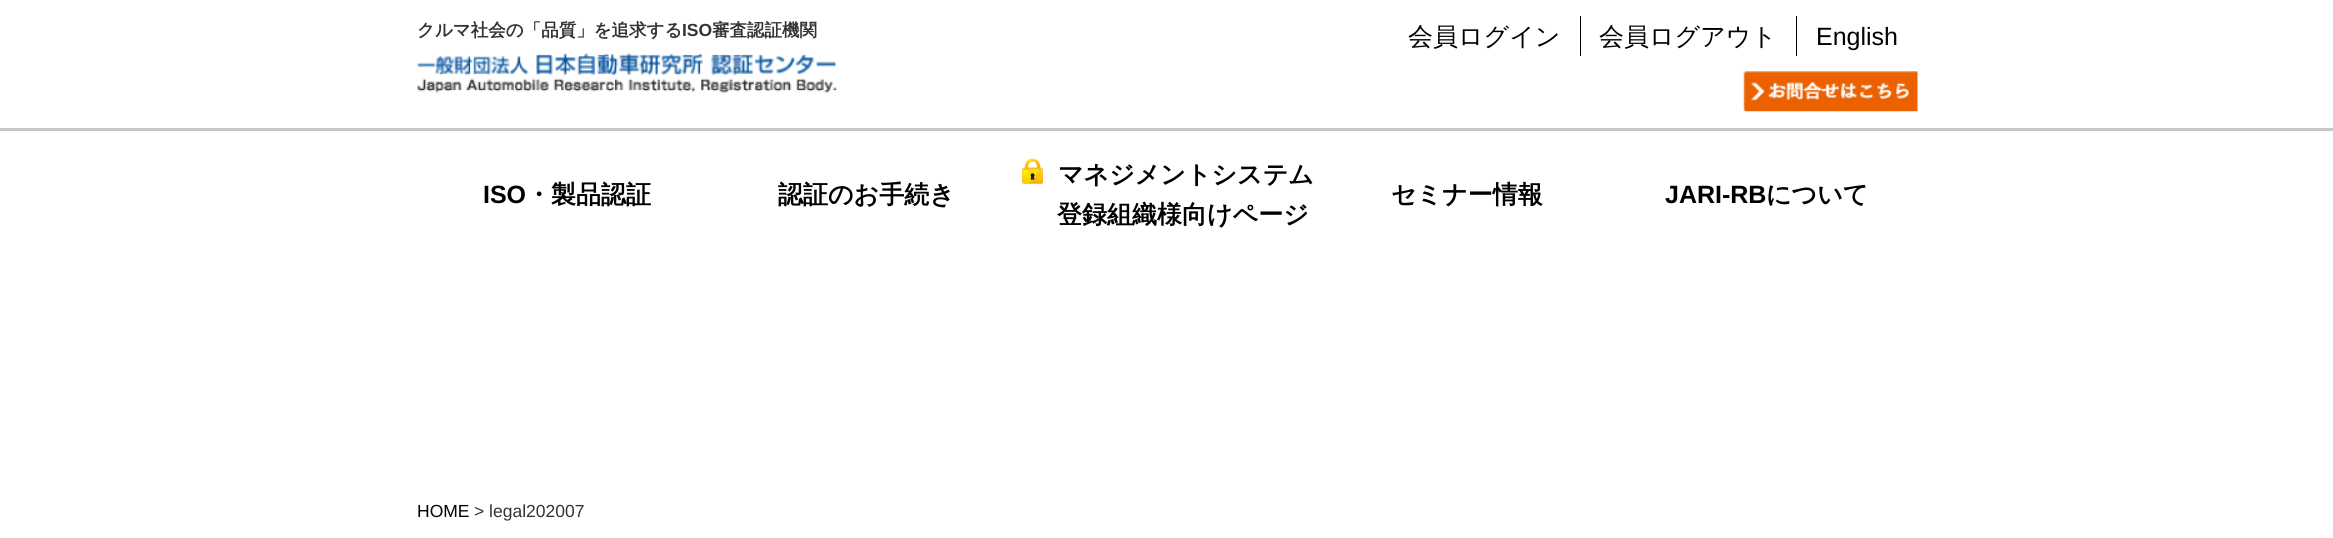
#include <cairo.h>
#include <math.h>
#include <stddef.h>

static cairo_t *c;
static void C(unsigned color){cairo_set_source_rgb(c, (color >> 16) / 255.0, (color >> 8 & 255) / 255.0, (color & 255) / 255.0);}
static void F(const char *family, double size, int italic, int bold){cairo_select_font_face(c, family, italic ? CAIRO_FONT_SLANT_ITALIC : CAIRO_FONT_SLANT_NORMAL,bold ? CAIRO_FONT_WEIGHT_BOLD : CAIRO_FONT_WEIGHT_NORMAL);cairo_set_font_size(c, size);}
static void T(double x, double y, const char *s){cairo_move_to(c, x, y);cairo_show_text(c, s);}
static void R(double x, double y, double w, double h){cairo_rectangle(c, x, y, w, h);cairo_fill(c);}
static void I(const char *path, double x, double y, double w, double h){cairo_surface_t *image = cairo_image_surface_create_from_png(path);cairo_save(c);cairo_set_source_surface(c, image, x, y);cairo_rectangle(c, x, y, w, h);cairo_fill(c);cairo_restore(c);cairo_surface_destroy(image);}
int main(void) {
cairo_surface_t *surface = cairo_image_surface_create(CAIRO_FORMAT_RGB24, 2333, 538);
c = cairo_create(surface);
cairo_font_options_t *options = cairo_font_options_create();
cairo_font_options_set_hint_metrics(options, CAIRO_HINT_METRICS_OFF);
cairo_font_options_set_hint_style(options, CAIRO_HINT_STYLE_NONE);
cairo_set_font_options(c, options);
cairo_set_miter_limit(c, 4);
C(0xffffff);
cairo_paint(c);
C(0xc7c7c7);
R(0,128,2333,3);
F("WenQuanYi Zen Hei",17.5,0,1);
C(0x333333);
T(417,36,"クルマ社会の「品質」を追求する");
F("Liberation Sans",17.5,0,1);
T(682,36,"ISO");
F("WenQuanYi Zen Hei",17.5,0,1);
T(712,36,"審査認証機関");
I("1.png",417,53,420,40);
C(0x000000);
R(1580,16,1,40);
F("WenQuanYi Zen Hei Medium",25,0,0);
T(1408,45,"会員ログイン");
R(1796,16,1,40);
T(1599,45,"会員ログアウト");
F("Liberation Sans",25,0,0);
T(1816,45,"English");
I("2.png",1743,71,175,41);
F("Liberation Sans",25,0,1);
T(483,203,"ISO");
F("WenQuanYi Zen Hei",25,0,1);
T(526,203,"・製品認証");
T(778,203,"認証のお手続き");
I("3.png",1022,158,21,26);
T(1058,183,"マネジメントシステム");
T(1057,223,"登録組織様向けページ");
T(1391,203,"セミナー情報");
F("Liberation Sans",25,0,1);
T(1665,203,"JARI-RB");
F("WenQuanYi Zen Hei",25,0,1);
T(1766,203,"について");
F("Liberation Sans",17.5,0,0);
T(417,517,"HOME");
C(0x333333);
T(474,517,"> legal202007");
cairo_surface_write_to_png(surface, "o.png");
cairo_font_options_destroy(options);
cairo_destroy(c);
cairo_surface_destroy(surface);
return 0;
}
